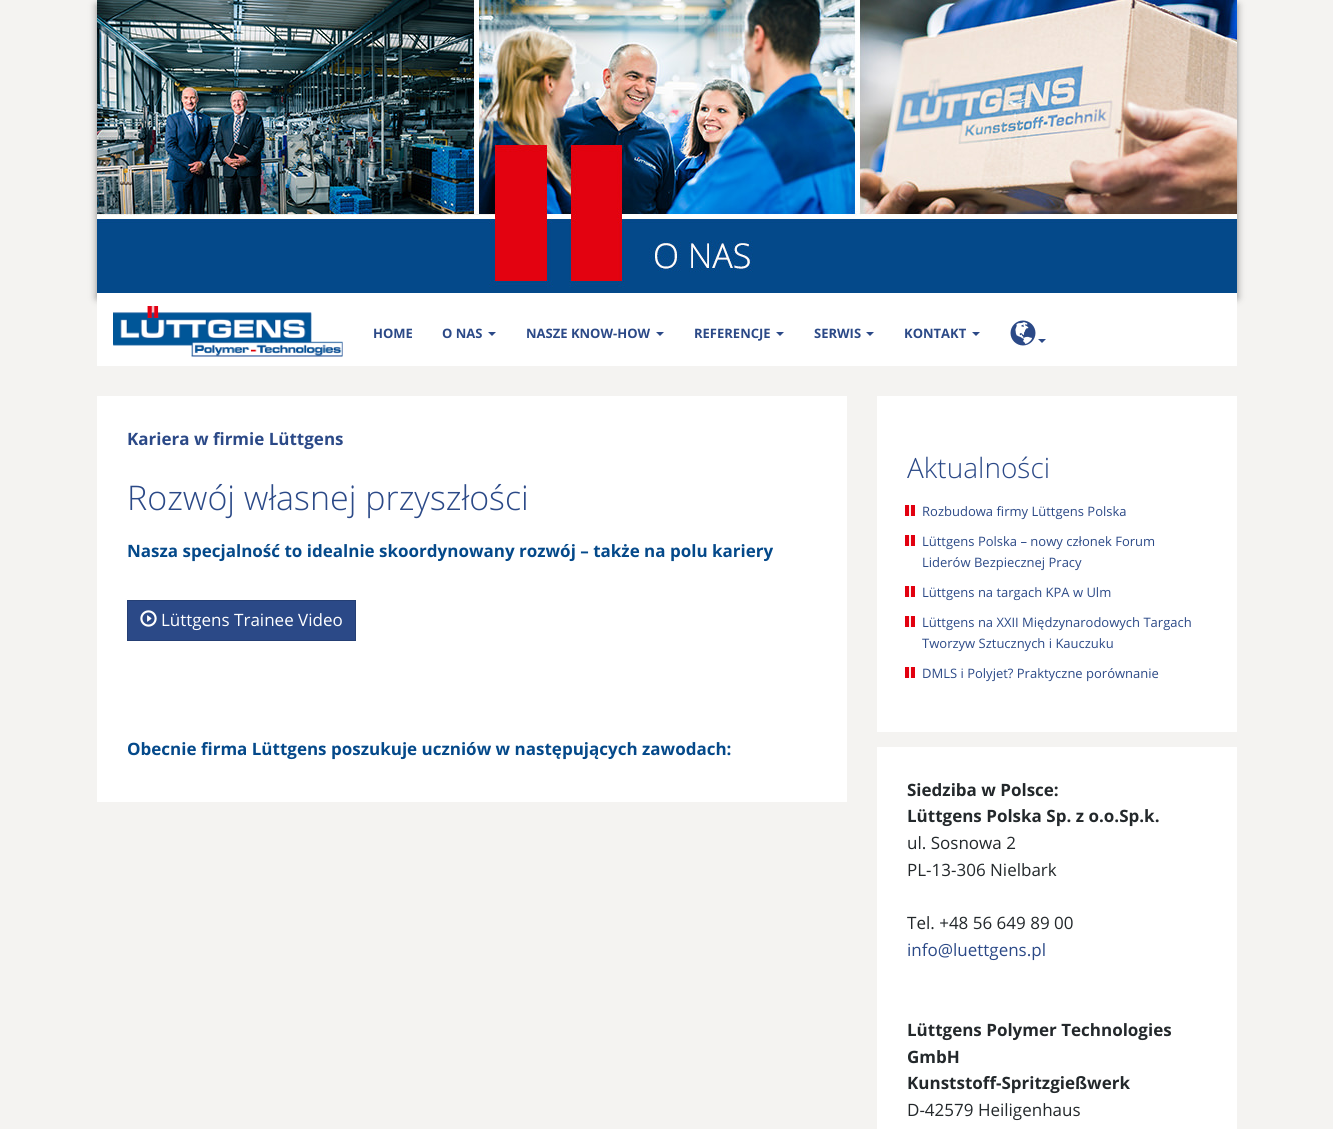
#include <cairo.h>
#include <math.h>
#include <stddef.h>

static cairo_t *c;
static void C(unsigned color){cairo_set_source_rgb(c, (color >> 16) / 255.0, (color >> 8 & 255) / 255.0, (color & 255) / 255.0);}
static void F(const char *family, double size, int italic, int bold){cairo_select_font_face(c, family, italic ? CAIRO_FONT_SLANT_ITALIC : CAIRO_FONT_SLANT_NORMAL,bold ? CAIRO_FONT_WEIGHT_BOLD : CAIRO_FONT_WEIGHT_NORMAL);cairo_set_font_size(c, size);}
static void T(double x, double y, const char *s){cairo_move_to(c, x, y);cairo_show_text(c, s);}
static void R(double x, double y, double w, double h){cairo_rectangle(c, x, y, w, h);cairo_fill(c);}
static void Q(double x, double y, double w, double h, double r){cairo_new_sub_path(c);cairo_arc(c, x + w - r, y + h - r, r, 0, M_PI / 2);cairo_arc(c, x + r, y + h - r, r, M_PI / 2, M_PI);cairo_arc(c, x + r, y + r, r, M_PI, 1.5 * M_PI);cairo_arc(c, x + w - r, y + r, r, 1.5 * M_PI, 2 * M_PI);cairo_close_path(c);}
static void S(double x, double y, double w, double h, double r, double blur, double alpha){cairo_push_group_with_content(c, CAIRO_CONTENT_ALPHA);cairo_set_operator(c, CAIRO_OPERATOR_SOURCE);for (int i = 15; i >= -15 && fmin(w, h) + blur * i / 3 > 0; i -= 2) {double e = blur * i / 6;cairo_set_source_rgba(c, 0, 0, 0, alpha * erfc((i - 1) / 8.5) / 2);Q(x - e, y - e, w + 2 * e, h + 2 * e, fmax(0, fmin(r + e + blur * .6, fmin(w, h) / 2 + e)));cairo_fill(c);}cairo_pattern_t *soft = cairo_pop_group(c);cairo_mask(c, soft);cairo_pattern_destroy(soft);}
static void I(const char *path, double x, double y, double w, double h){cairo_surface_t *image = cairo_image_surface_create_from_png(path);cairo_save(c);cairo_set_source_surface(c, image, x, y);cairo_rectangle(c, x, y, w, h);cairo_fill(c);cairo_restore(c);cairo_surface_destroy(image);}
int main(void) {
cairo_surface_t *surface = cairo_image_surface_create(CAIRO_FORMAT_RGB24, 1333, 1129);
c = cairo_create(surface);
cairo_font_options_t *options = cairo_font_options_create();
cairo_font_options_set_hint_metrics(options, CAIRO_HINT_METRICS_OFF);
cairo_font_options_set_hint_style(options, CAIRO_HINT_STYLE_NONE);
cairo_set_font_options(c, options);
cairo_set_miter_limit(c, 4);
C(0xf4f3f1);
cairo_paint(c);
C(0x000000);
S(97,5,1140,293,0,4,.45);
I("1.png",97,0,1140,293);
C(0xffffff);
R(97,293,1140,73);
I("2.png",113,306,230,51);
F("Open Sans",13,0,1);
C(0x2b4987);
T(373,338,"HOME");
T(442,338,"O NAS");
cairo_new_path(c);
cairo_move_to(c,488,332);
cairo_line_to(c,496,332);
cairo_line_to(c,492,336);
cairo_close_path(c);
cairo_fill(c);
T(526,338,"NASZE KNOW-HOW");
cairo_new_path(c);
cairo_move_to(c,656,332);
cairo_line_to(c,664,332);
cairo_line_to(c,660,336);
cairo_close_path(c);
cairo_fill(c);
T(694,338,"REFERENCJE");
cairo_new_path(c);
cairo_move_to(c,776,332);
cairo_line_to(c,784,332);
cairo_line_to(c,780,336);
cairo_close_path(c);
cairo_fill(c);
T(814,338,"SERWIS");
cairo_new_path(c);
cairo_move_to(c,866,332);
cairo_line_to(c,874,332);
cairo_line_to(c,870,336);
cairo_close_path(c);
cairo_fill(c);
T(904,338,"KONTAKT");
cairo_new_path(c);
cairo_move_to(c,972,332);
cairo_line_to(c,980,332);
cairo_line_to(c,976,336);
cairo_close_path(c);
cairo_fill(c);
I("3.png",1010,320,26,26);
cairo_new_path(c);
cairo_move_to(c,1038,339);
cairo_line_to(c,1046,339);
cairo_line_to(c,1042,343);
cairo_close_path(c);
cairo_fill(c);
C(0xffffff);
R(97,396,750,406);
F("Open Sans",17,0,1);
C(0x2b4987);
T(127,445,"Kariera w firmie Lüttgens");
F("Open Sans Light",34,0,0);
T(127,510,"Rozwój własnej przyszłości");
F("Open Sans",17,0,1);
C(0x04498a);
T(127,557,"Nasza specjalność to idealnie skoordynowany rozwój – także na polu kariery");
C(0x2b4987);
cairo_rectangle(c,127.5,600.5,228,40);
cairo_fill_preserve(c);
C(0x253f74);
cairo_set_line_width(c,1);
cairo_stroke(c);
I("4.png",140,610,17,17);
F("Open Sans",17,0,0);
C(0xffffff);
T(161,626,"Lüttgens Trainee Video");
F("Open Sans",17,0,1);
C(0x04498a);
T(127,755,"Obecnie firma Lüttgens poszukuje uczniów w następujących zawodach:");
C(0xffffff);
R(877,396,360,336);
F("Open Sans Light",28,0,0);
C(0x2b4987);
T(907,478,"Aktualności");
I("5.png",905,505,10,11);
F("Open Sans",13,0,0);
T(922,516,"Rozbudowa firmy Lüttgens Polska");
I("5.png",905,535,10,11);
T(922,546,"Lüttgens Polska – nowy członek Forum");
T(922,567,"Liderów Bezpiecznej Pracy");
I("5.png",905,586,10,11);
T(922,597,"Lüttgens na targach KPA w Ulm");
I("5.png",905,616,10,11);
T(922,627,"Lüttgens na XXII Międzynarodowych Targach");
T(922,648,"Tworzyw Sztucznych i Kauczuku");
I("5.png",905,667,10,11);
T(922,678,"DMLS i Polyjet? Praktyczne porównanie");
C(0xffffff);
R(877,747,360,382);
F("Open Sans",17,0,1);
C(0x23282b);
T(907,796,"Siedziba w Polsce:");
T(907,822,"Lüttgens Polska Sp. z o.o.Sp.k.");
F("Open Sans",17,0,0);
T(907,849,"ul. Sosnowa 2");
T(907,876,"PL-13-306 Nielbark");
T(907,929,"Tel. +48 56 649 89 00");
C(0x2b4987);
T(907,956,"info@luettgens.pl");
F("Open Sans",17,0,1);
C(0x23282b);
T(907,1036,"Lüttgens Polymer Technologies");
T(907,1063,"GmbH");
T(907,1089,"Kunststoff-Spritzgießwerk");
F("Open Sans",17,0,0);
T(907,1116,"D-42579 Heiligenhaus");
cairo_surface_write_to_png(surface, "o.png");
cairo_font_options_destroy(options);
cairo_destroy(c);
cairo_surface_destroy(surface);
return 0;
}
